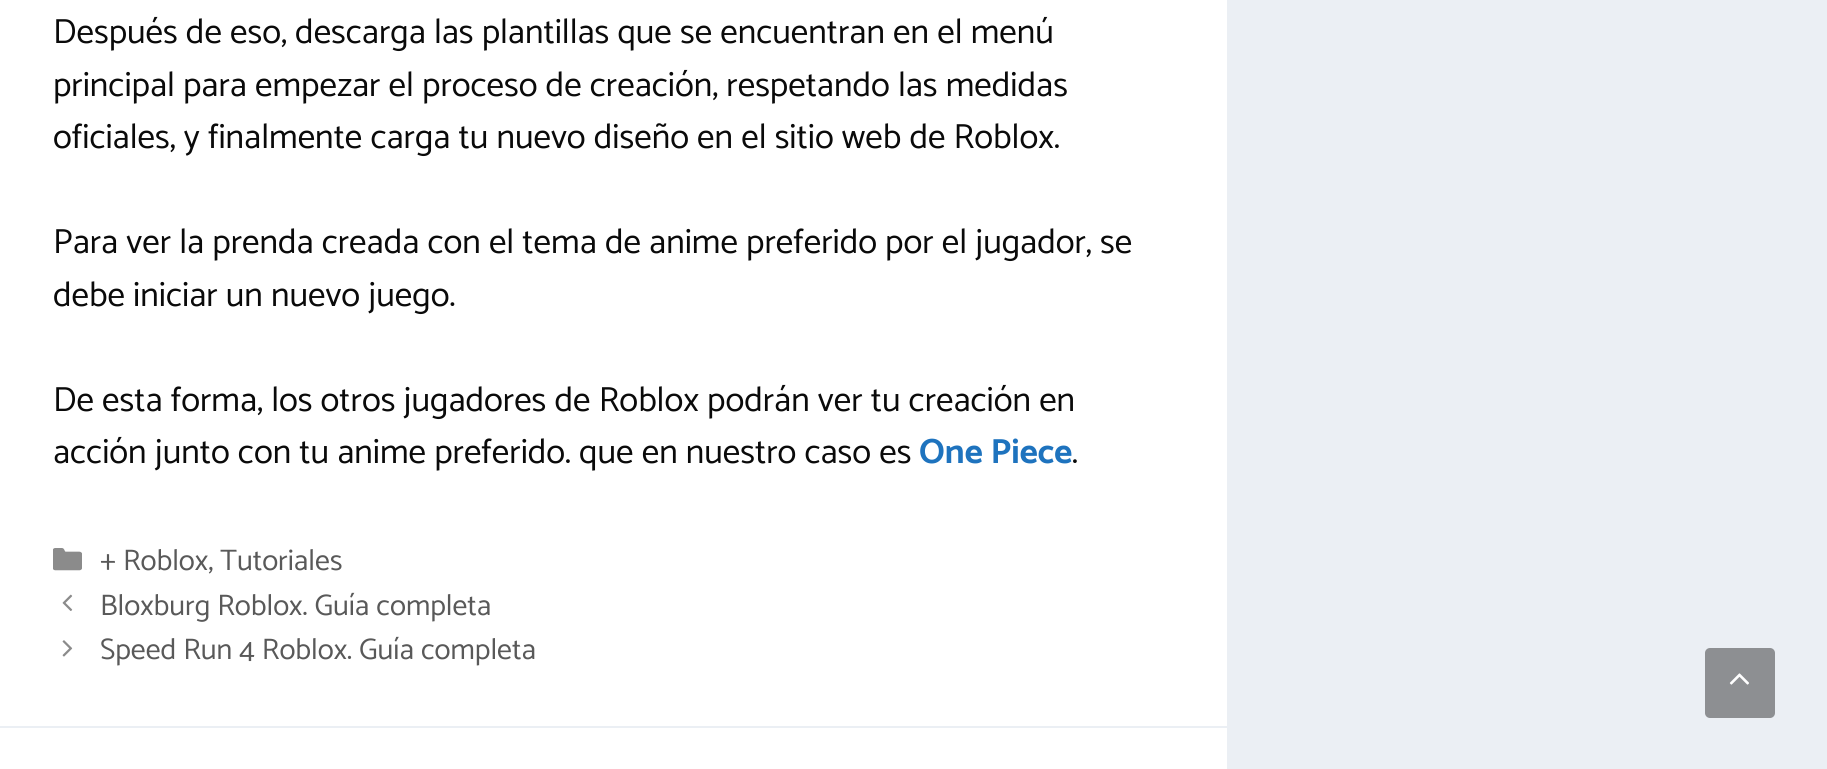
#include <cairo.h>
#include <math.h>
#include <stddef.h>

static cairo_t *c;
static void C(unsigned color){cairo_set_source_rgb(c, (color >> 16) / 255.0, (color >> 8 & 255) / 255.0, (color & 255) / 255.0);}
static void F(const char *family, double size, int italic, int bold){cairo_select_font_face(c, family, italic ? CAIRO_FONT_SLANT_ITALIC : CAIRO_FONT_SLANT_NORMAL,bold ? CAIRO_FONT_WEIGHT_BOLD : CAIRO_FONT_WEIGHT_NORMAL);cairo_set_font_size(c, size);}
static void T(double x, double y, const char *s){cairo_move_to(c, x, y);cairo_show_text(c, s);}
static void R(double x, double y, double w, double h){cairo_rectangle(c, x, y, w, h);cairo_fill(c);}
static void Q(double x, double y, double w, double h, double r){cairo_new_sub_path(c);cairo_arc(c, x + w - r, y + h - r, r, 0, M_PI / 2);cairo_arc(c, x + r, y + h - r, r, M_PI / 2, M_PI);cairo_arc(c, x + r, y + r, r, M_PI, 1.5 * M_PI);cairo_arc(c, x + w - r, y + r, r, 1.5 * M_PI, 2 * M_PI);cairo_close_path(c);}
static void I(const char *path, double x, double y, double w, double h){cairo_surface_t *image = cairo_image_surface_create_from_png(path);cairo_save(c);cairo_set_source_surface(c, image, x, y);cairo_rectangle(c, x, y, w, h);cairo_fill(c);cairo_restore(c);cairo_surface_destroy(image);}
int main(void) {
cairo_surface_t *surface = cairo_image_surface_create(CAIRO_FORMAT_RGB24, 1827, 769);
c = cairo_create(surface);
cairo_font_options_t *options = cairo_font_options_create();
cairo_font_options_set_hint_metrics(options, CAIRO_HINT_METRICS_OFF);
cairo_font_options_set_hint_style(options, CAIRO_HINT_STYLE_NONE);
cairo_set_font_options(c, options);
cairo_set_miter_limit(c, 4);
C(0xebeff4);
cairo_paint(c);
C(0xffffff);
R(0,0,1227,726);
F("Catamaran",35,0,0);
C(0x0a0a0a);
T(53,43,"Después de eso, descarga las plantillas que se encuentran en el menú");
T(53,96,"principal para empezar el proceso de creación, respetando las medidas");
T(53,148,"oficiales, y finalmente carga tu nuevo diseño en el sitio web de Roblox.");
T(53,253,"Para ver la prenda creada con el tema de anime preferido por el jugador, se");
T(53,306,"debe iniciar un nuevo juego.");
T(53,411,"De esta forma, los otros jugadores de Roblox podrán ver tu creación en");
T(53,463,"acción junto con tu anime preferido. que en nuestro caso es");
F("Catamaran",35,0,1);
C(0x1e73be);
T(919,463,"One Piece");
F("Catamaran",35,0,0);
C(0x0a0a0a);
T(1072,463,".");
I("1.png",53,548,29,23);
F("Catamaran",29.75,0,0);
C(0x595959);
T(100,570,"+ Roblox, Tutoriales");
I("2.png",62,594,11,17);
T(100,615,"Bloxburg Roblox. Guía completa");
I("3.png",62,640,11,17);
T(100,659,"Speed Run 4 Roblox. Guía completa");
C(0xffffff);
R(0,728,1227,41);
C(0x8d8f92);
Q(1705,648,70,70,5);
cairo_fill(c);
I("4.png",1729,673,20,12);
cairo_surface_write_to_png(surface, "o.png");
cairo_font_options_destroy(options);
cairo_destroy(c);
cairo_surface_destroy(surface);
return 0;
}
